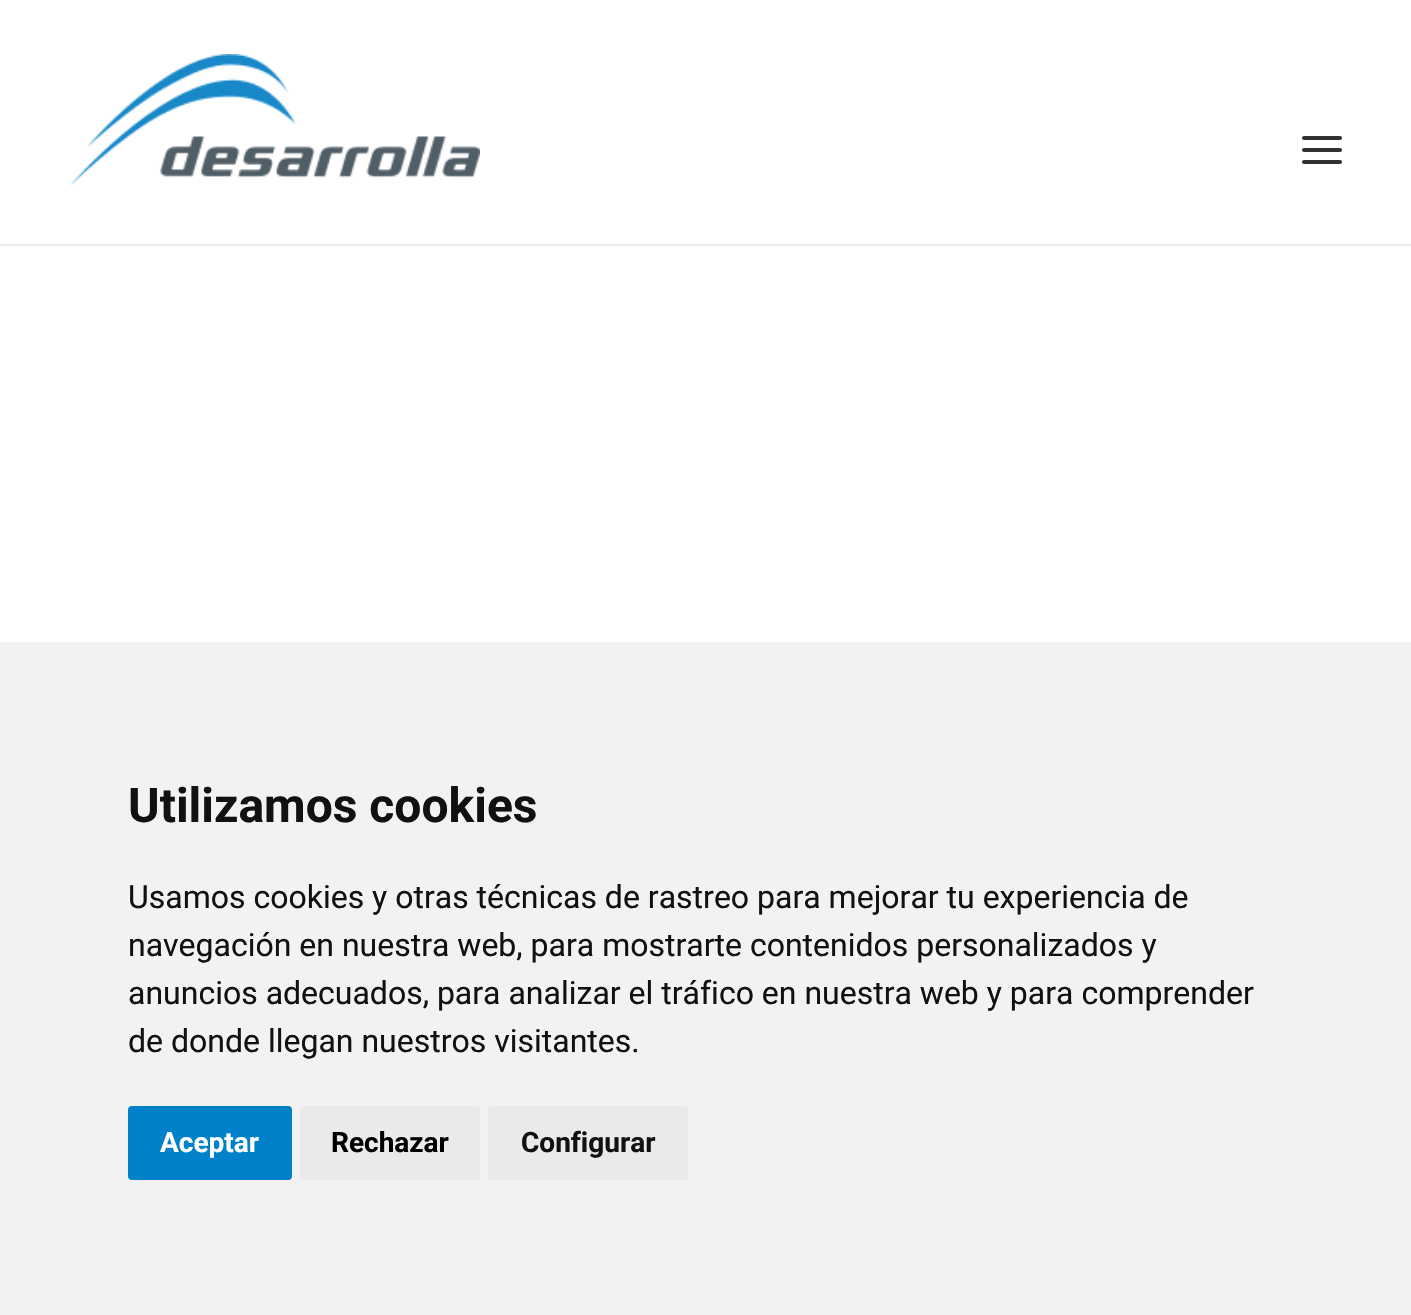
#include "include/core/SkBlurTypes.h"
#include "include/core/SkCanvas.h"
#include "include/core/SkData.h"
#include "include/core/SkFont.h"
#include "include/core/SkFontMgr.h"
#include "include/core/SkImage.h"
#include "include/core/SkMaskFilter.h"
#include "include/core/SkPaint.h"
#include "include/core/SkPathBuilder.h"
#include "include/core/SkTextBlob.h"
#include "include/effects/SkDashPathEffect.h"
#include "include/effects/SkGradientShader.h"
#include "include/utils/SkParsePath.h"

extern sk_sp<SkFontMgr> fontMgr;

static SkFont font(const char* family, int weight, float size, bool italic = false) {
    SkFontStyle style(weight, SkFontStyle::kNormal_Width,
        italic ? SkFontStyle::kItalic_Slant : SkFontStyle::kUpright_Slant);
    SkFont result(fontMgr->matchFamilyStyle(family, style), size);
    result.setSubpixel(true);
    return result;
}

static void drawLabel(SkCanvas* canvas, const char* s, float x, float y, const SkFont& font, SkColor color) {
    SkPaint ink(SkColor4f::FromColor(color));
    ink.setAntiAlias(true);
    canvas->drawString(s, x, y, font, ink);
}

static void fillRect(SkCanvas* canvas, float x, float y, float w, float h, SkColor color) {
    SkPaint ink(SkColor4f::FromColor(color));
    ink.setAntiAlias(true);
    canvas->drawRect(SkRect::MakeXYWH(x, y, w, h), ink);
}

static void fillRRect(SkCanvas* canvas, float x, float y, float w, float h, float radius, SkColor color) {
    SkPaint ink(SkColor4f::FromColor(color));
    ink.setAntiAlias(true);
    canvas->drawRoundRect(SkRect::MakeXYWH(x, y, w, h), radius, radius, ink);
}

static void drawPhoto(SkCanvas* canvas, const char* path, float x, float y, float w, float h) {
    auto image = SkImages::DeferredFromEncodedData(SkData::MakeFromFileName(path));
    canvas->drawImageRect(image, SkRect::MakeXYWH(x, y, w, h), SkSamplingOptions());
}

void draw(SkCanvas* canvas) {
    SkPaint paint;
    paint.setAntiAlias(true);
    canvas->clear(0xFFFFFFFF);
    fillRect(canvas, 0, 244, 1411, 2, 0xFFEAEAEA);
    drawPhoto(canvas, "assets/img1.png", 70, 54, 410, 132);
    fillRRect(canvas, 1302, 148, 40, 4, 2, 0xFF303133);
    fillRRect(canvas, 1302, 136, 40, 4, 2, 0xFF303133);
    fillRRect(canvas, 1302, 160, 40, 4, 2, 0xFF303133);
    fillRect(canvas, 0, 642, 1411, 673, 0xFFF2F2F2);
    SkFont font1 = font("Roboto", 700, 48);
    drawLabel(canvas, "Utilizamos cookies", 128, 822, font1, 0xFF111111);
    SkFont font2 = font("Roboto", 400, 32);
    drawLabel(canvas, "Usamos cookies y otras técnicas de rastreo para mejorar tu experiencia de", 128, 908, font2, 0xFF111111);
    drawLabel(canvas, "navegación en nuestra web, para mostrarte contenidos personalizados y", 128, 956, font2, 0xFF111111);
    drawLabel(canvas, "anuncios adecuados, para analizar el tráfico en nuestra web y para comprender", 128, 1004, font2, 0xFF111111);
    drawLabel(canvas, "de donde llegan nuestros visitantes.", 128, 1052, font2, 0xFF111111);
    fillRRect(canvas, 128, 1106, 164, 74, 4, 0xFF0081C9);
    SkFont font3 = font("Roboto", 700, 28);
    drawLabel(canvas, "Aceptar", 160, 1152, font3, 0xFFFFFFFF);
    fillRRect(canvas, 300, 1106, 180, 74, 4, 0xFFEAEAEA);
    drawLabel(canvas, "Rechazar", 331, 1152, font3, 0xFF000000);
    fillRRect(canvas, 488, 1106, 200, 74, 4, 0xFFEAEAEA);
    drawLabel(canvas, "Configurar", 521, 1152, font3, 0xFF111111);
}
